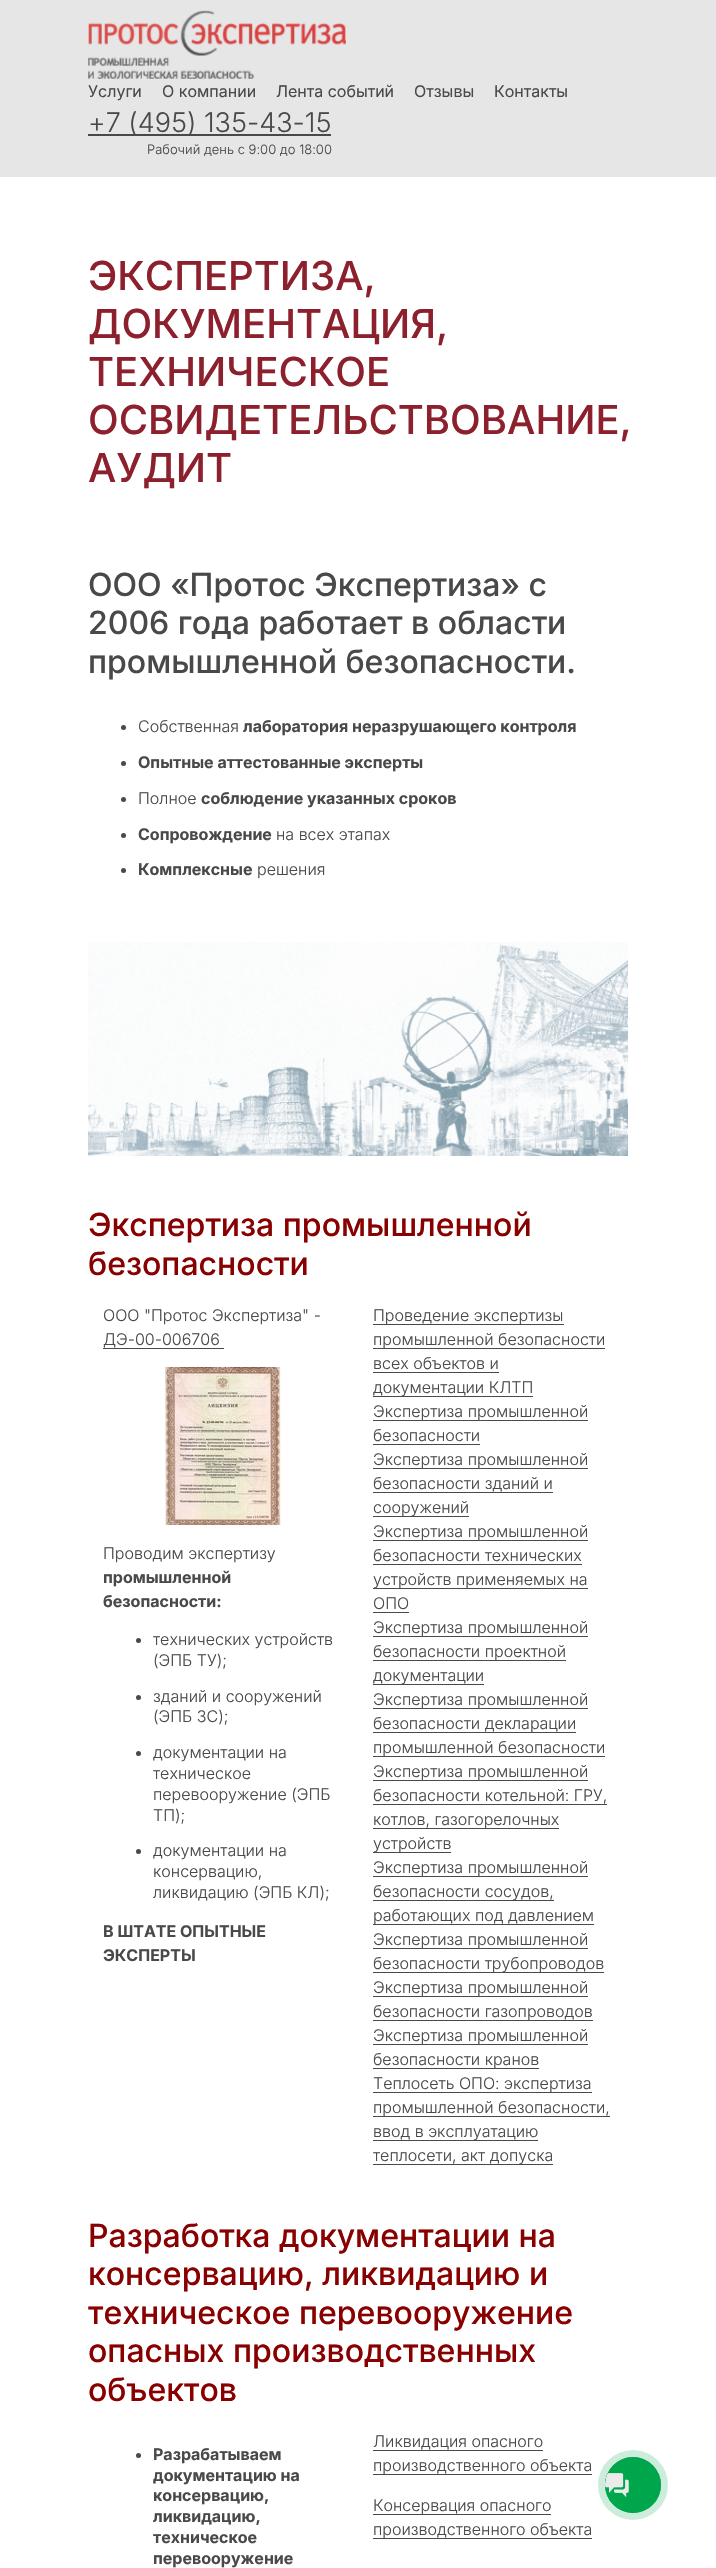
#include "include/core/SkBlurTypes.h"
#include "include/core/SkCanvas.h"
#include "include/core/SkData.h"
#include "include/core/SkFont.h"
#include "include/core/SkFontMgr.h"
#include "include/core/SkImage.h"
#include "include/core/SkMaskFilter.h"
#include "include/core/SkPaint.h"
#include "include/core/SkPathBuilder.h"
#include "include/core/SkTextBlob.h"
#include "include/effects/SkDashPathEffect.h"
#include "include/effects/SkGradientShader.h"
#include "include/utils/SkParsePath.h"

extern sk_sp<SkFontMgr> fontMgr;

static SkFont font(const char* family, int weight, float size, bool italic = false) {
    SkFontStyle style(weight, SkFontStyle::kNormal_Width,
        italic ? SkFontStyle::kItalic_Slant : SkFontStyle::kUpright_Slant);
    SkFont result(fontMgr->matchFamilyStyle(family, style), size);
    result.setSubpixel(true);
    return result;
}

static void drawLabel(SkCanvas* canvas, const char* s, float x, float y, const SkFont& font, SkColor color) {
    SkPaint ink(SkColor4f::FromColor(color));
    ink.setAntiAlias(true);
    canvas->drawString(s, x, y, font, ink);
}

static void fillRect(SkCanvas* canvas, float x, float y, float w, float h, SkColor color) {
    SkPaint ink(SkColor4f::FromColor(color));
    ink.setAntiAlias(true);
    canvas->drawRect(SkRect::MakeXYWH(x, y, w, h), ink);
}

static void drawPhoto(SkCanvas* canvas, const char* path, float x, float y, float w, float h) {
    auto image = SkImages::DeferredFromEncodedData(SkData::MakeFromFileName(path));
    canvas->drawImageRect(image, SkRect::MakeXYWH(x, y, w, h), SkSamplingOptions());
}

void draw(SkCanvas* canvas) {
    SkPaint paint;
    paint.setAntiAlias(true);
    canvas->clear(0xFFFFFFFF);
    fillRect(canvas, 0, 0, 716, 177, 0xFFE6E6E6);
    drawPhoto(canvas, "assets/img1.png", 88, 10, 258, 69);
    SkFont font1 = font("Inter", 400, 16);
    drawLabel(canvas, "Услуги", 88, 97, font1, 0xFF494949);
    drawLabel(canvas, "О компании", 162, 97, font1, 0xFF494949);
    drawLabel(canvas, "Лента событий", 276, 97, font1, 0xFF494949);
    drawLabel(canvas, "Отзывы", 414, 97, font1, 0xFF494949);
    drawLabel(canvas, "Контакты", 494, 97, font1, 0xFF494949);
    fillRect(canvas, 88, 134, 243, 2, 0xFF494949);
    SkFont font2 = font("Inter", 300, 27);
    drawLabel(canvas, "+7 (495) 135-43-15", 88, 132, font2, 0xFF494949);
    SkFont font3 = font("Inter", 300, 13);
    drawLabel(canvas, "Рабочий день с 9:00 до 18:00", 147, 154, font3, 0xFF494949);
    drawPhoto(canvas, "assets/img2.png", 88, 942, 540, 214);
    SkFont font4 = font("Inter", 500, 40);
    drawLabel(canvas, "ЭКСПЕРТИЗА,", 88, 290, font4, 0xFF8D202D);
    drawLabel(canvas, "ДОКУМЕНТАЦИЯ,", 88, 338, font4, 0xFF8D202D);
    drawLabel(canvas, "ТЕХНИЧЕСКОЕ", 88, 386, font4, 0xFF8D202D);
    drawLabel(canvas, "ОСВИДЕТЕЛЬСТВОВАНИЕ,", 88, 434, font4, 0xFF8D202D);
    drawLabel(canvas, "АУДИТ", 88, 482, font4, 0xFF8D202D);
    SkFont font5 = font("Inter", 500, 32);
    drawLabel(canvas, "ООО «Протос Экспертиза» с", 88, 596, font5, 0xFF494949);
    drawLabel(canvas, "2006 года работает в области", 88, 634, font5, 0xFF494949);
    drawLabel(canvas, "промышленной безопасности.", 88, 673, font5, 0xFF494949);
    paint.setColor(0xFF494949);
    canvas->drawCircle(123.5f, 727.5f, 2.5f, paint);
    SkFont font6 = font("Inter", 300, 16);
    drawLabel(canvas, "Собственная", 138, 732, font6, 0xFF494949);
    SkFont font7 = font("Inter", 700, 16);
    drawLabel(canvas, "лаборатория неразрушающего контроля", 243, 732, font7, 0xFF494949);
    canvas->drawCircle(123.5f, 763.5f, 2.5f, paint);
    drawLabel(canvas, "Опытные аттестованные эксперты", 138, 768, font7, 0xFF494949);
    canvas->drawCircle(123.5f, 799.5f, 2.5f, paint);
    drawLabel(canvas, "Полное", 138, 804, font6, 0xFF494949);
    drawLabel(canvas, "соблюдение указанных сроков", 201, 804, font7, 0xFF494949);
    canvas->drawCircle(123.5f, 835.5f, 2.5f, paint);
    drawLabel(canvas, "Сопровождение", 138, 840, font7, 0xFF494949);
    drawLabel(canvas, "на всех этапах", 276, 840, font6, 0xFF494949);
    canvas->drawCircle(123.5f, 870.5f, 2.5f, paint);
    drawLabel(canvas, "Комплексные", 138, 875, font7, 0xFF494949);
    drawLabel(canvas, "решения", 257, 875, font6, 0xFF494949);
    drawLabel(canvas, "Экспертиза промышленной", 88, 1236, font5, 0xFF880000);
    drawLabel(canvas, "безопасности", 88, 1275, font5, 0xFF880000);
    drawLabel(canvas, "ООО \"Протос Экспертиза\" -", 103, 1321, font6, 0xFF494949);
    drawLabel(canvas, "ДЭ-00-006706", 103, 1345, font6, 0xFF494949);
    fillRect(canvas, 103, 1348, 121, 1, 0xFF494949);
    drawPhoto(canvas, "assets/img3.png", 165, 1367, 116, 158);
    drawLabel(canvas, "Проводим экспертизу", 103, 1559, font6, 0xFF494949);
    drawLabel(canvas, "промышленной", 103, 1583, font7, 0xFF494949);
    drawLabel(canvas, "безопасности:", 103, 1607, font7, 0xFF494949);
    canvas->drawCircle(138.5f, 1640.5f, 2.5f, paint);
    drawLabel(canvas, "технических устройств", 153, 1645, font6, 0xFF494949);
    drawLabel(canvas, "(ЭПБ ТУ);", 153, 1666, font6, 0xFF494949);
    canvas->drawCircle(138.5f, 1697.5f, 2.5f, paint);
    drawLabel(canvas, "зданий и сооружений", 153, 1702, font6, 0xFF494949);
    drawLabel(canvas, "(ЭПБ ЗС);", 153, 1722, font6, 0xFF494949);
    canvas->drawCircle(138.5f, 1753.5f, 2.5f, paint);
    drawLabel(canvas, "документации на", 153, 1758, font6, 0xFF494949);
    drawLabel(canvas, "техническое", 153, 1779, font6, 0xFF494949);
    drawLabel(canvas, "перевооружение (ЭПБ", 153, 1800, font6, 0xFF494949);
    drawLabel(canvas, "ТП);", 153, 1821, font6, 0xFF494949);
    canvas->drawCircle(138.5f, 1851.5f, 2.5f, paint);
    drawLabel(canvas, "документации на", 153, 1856, font6, 0xFF494949);
    drawLabel(canvas, "консервацию,", 153, 1877, font6, 0xFF494949);
    drawLabel(canvas, "ликвидацию (ЭПБ КЛ);", 153, 1898, font6, 0xFF494949);
    drawLabel(canvas, "В ШТАТЕ ОПЫТНЫЕ", 103, 1937, font7, 0xFF494949);
    drawLabel(canvas, "ЭКСПЕРТЫ", 103, 1961, font7, 0xFF494949);
    fillRect(canvas, 373, 1324, 191, 1, 0xFF494949);
    drawLabel(canvas, "Проведение экспертизы", 373, 1321, font6, 0xFF494949);
    fillRect(canvas, 373, 1348, 232, 1, 0xFF494949);
    drawLabel(canvas, "промышленной безопасности", 373, 1345, font6, 0xFF494949);
    drawLabel(canvas, "всех объектов и", 373, 1369, font6, 0xFF494949);
    fillRect(canvas, 373, 1372, 126, 1, 0xFF494949);
    fillRect(canvas, 373, 1396, 160, 1, 0xFF494949);
    drawLabel(canvas, "документации КЛТП", 373, 1393, font6, 0xFF494949);
    fillRect(canvas, 373, 1420, 215, 1, 0xFF494949);
    drawLabel(canvas, "Экспертиза промышленной", 373, 1417, font6, 0xFF494949);
    drawLabel(canvas, "безопасности", 373, 1441, font6, 0xFF494949);
    fillRect(canvas, 373, 1444, 107, 1, 0xFF494949);
    fillRect(canvas, 373, 1468, 215, 1, 0xFF494949);
    drawLabel(canvas, "Экспертиза промышленной", 373, 1465, font6, 0xFF494949);
    drawLabel(canvas, "безопасности зданий и", 373, 1489, font6, 0xFF494949);
    fillRect(canvas, 373, 1492, 180, 1, 0xFF494949);
    fillRect(canvas, 373, 1516, 96, 1, 0xFF494949);
    drawLabel(canvas, "сооружений", 373, 1513, font6, 0xFF494949);
    fillRect(canvas, 373, 1540, 215, 1, 0xFF494949);
    drawLabel(canvas, "Экспертиза промышленной", 373, 1537, font6, 0xFF494949);
    drawLabel(canvas, "безопасности технических", 373, 1561, font6, 0xFF494949);
    fillRect(canvas, 373, 1564, 209, 1, 0xFF494949);
    fillRect(canvas, 373, 1588, 215, 1, 0xFF494949);
    drawLabel(canvas, "устройств применяемых на", 373, 1585, font6, 0xFF494949);
    drawLabel(canvas, "ОПО", 373, 1609, font6, 0xFF494949);
    fillRect(canvas, 373, 1612, 36, 1, 0xFF494949);
    fillRect(canvas, 373, 1636, 215, 1, 0xFF494949);
    drawLabel(canvas, "Экспертиза промышленной", 373, 1633, font6, 0xFF494949);
    fillRect(canvas, 373, 1660, 193, 1, 0xFF494949);
    drawLabel(canvas, "безопасности проектной", 373, 1657, font6, 0xFF494949);
    fillRect(canvas, 373, 1684, 111, 1, 0xFF494949);
    drawLabel(canvas, "документации", 373, 1681, font6, 0xFF494949);
    fillRect(canvas, 373, 1708, 215, 1, 0xFF494949);
    drawLabel(canvas, "Экспертиза промышленной", 373, 1705, font6, 0xFF494949);
    fillRect(canvas, 373, 1732, 203, 1, 0xFF494949);
    drawLabel(canvas, "безопасности декларации", 373, 1729, font6, 0xFF494949);
    fillRect(canvas, 373, 1756, 232, 1, 0xFF494949);
    drawLabel(canvas, "промышленной безопасности", 373, 1753, font6, 0xFF494949);
    fillRect(canvas, 373, 1780, 215, 1, 0xFF494949);
    drawLabel(canvas, "Экспертиза промышленной", 373, 1777, font6, 0xFF494949);
    drawLabel(canvas, "безопасности котельной: ГРУ,", 373, 1801, font6, 0xFF494949);
    fillRect(canvas, 373, 1804, 234, 1, 0xFF494949);
    fillRect(canvas, 373, 1828, 186, 1, 0xFF494949);
    drawLabel(canvas, "котлов, газогорелочных", 373, 1825, font6, 0xFF494949);
    fillRect(canvas, 373, 1852, 78, 1, 0xFF494949);
    drawLabel(canvas, "устройств", 373, 1849, font6, 0xFF494949);
    fillRect(canvas, 373, 1876, 215, 1, 0xFF494949);
    drawLabel(canvas, "Экспертиза промышленной", 373, 1873, font6, 0xFF494949);
    fillRect(canvas, 373, 1900, 181, 1, 0xFF494949);
    drawLabel(canvas, "безопасности сосудов,", 373, 1897, font6, 0xFF494949);
    fillRect(canvas, 373, 1924, 221, 1, 0xFF494949);
    drawLabel(canvas, "работающих под давлением", 373, 1921, font6, 0xFF494949);
    fillRect(canvas, 373, 1948, 215, 1, 0xFF494949);
    drawLabel(canvas, "Экспертиза промышленной", 373, 1945, font6, 0xFF494949);
    fillRect(canvas, 373, 1972, 231, 1, 0xFF494949);
    drawLabel(canvas, "безопасности трубопроводов", 373, 1969, font6, 0xFF494949);
    fillRect(canvas, 373, 1996, 215, 1, 0xFF494949);
    drawLabel(canvas, "Экспертиза промышленной", 373, 1993, font6, 0xFF494949);
    fillRect(canvas, 373, 2020, 220, 1, 0xFF494949);
    drawLabel(canvas, "безопасности газопроводов", 373, 2017, font6, 0xFF494949);
    fillRect(canvas, 373, 2044, 215, 1, 0xFF494949);
    drawLabel(canvas, "Экспертиза промышленной", 373, 2041, font6, 0xFF494949);
    fillRect(canvas, 373, 2068, 166, 1, 0xFF494949);
    drawLabel(canvas, "безопасности кранов", 373, 2065, font6, 0xFF494949);
    fillRect(canvas, 373, 2092, 219, 1, 0xFF494949);
    drawLabel(canvas, "Теплосеть ОПО: экспертиза", 373, 2089, font6, 0xFF494949);
    fillRect(canvas, 373, 2116, 237, 1, 0xFF494949);
    drawLabel(canvas, "промышленной безопасности,", 373, 2113, font6, 0xFF494949);
    fillRect(canvas, 373, 2140, 165, 1, 0xFF494949);
    drawLabel(canvas, "ввод в эксплуатацию", 373, 2137, font6, 0xFF494949);
    fillRect(canvas, 373, 2164, 180, 1, 0xFF494949);
    drawLabel(canvas, "теплосети, акт допуска", 373, 2161, font6, 0xFF494949);
    drawLabel(canvas, "Разработка документации на", 88, 2247, font5, 0xFF880000);
    drawLabel(canvas, "консервацию, ликвидацию и", 88, 2285, font5, 0xFF880000);
    drawLabel(canvas, "техническое перевооружение", 88, 2324, font5, 0xFF880000);
    drawLabel(canvas, "опасных производственных", 88, 2362, font5, 0xFF880000);
    drawLabel(canvas, "объектов", 88, 2401, font5, 0xFF880000);
    canvas->drawCircle(138.5f, 2455.5f, 2.5f, paint);
    drawLabel(canvas, "Разрабатываем", 153, 2460, font7, 0xFF494949);
    drawLabel(canvas, "документацию на", 153, 2481, font7, 0xFF494949);
    drawLabel(canvas, "консервацию,", 153, 2501, font7, 0xFF494949);
    drawLabel(canvas, "ликвидацию,", 153, 2522, font7, 0xFF494949);
    drawLabel(canvas, "техническое", 153, 2543, font7, 0xFF494949);
    drawLabel(canvas, "перевооружение", 153, 2564, font7, 0xFF494949);
    drawLabel(canvas, "Ликвидация опасного", 373, 2447, font6, 0xFF494949);
    fillRect(canvas, 373, 2450, 170, 1, 0xFF494949);
    fillRect(canvas, 373, 2474, 219, 1, 0xFF494949);
    drawLabel(canvas, "производственного объекта", 373, 2471, font6, 0xFF494949);
    fillRect(canvas, 373, 2514, 178, 1, 0xFF494949);
    drawLabel(canvas, "Консервация опасного", 373, 2511, font6, 0xFF494949);
    fillRect(canvas, 373, 2538, 219, 1, 0xFF494949);
    drawLabel(canvas, "производственного объекта", 373, 2535, font6, 0xFF494949);
    paint.setColor(0xFFCCEDDB);
    canvas->drawCircle(633, 2485, 35, paint);
    paint.setStroke(true);
    paint.setStrokeWidth(0.8f);
    paint.setColor(0xFF00A64C);
    canvas->drawCircle(633, 2485, 27.6f, paint);
    paint.setStroke(false);
    canvas->drawCircle(633, 2485, 28, paint);
    drawPhoto(canvas, "assets/img4.png", 605, 2473, 24, 24);
}
